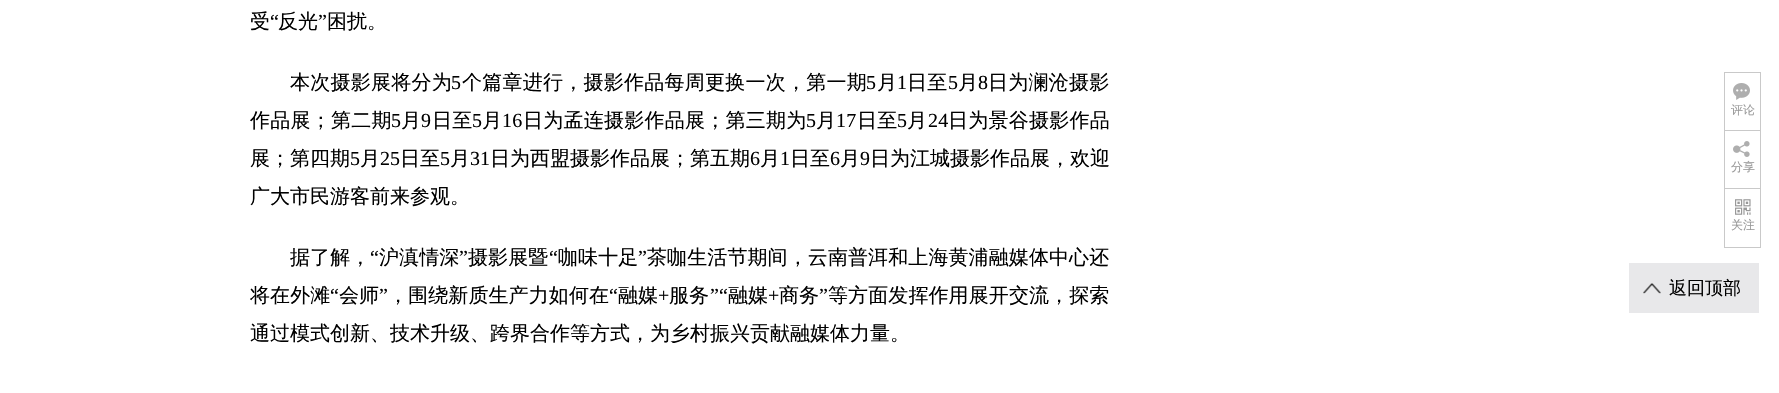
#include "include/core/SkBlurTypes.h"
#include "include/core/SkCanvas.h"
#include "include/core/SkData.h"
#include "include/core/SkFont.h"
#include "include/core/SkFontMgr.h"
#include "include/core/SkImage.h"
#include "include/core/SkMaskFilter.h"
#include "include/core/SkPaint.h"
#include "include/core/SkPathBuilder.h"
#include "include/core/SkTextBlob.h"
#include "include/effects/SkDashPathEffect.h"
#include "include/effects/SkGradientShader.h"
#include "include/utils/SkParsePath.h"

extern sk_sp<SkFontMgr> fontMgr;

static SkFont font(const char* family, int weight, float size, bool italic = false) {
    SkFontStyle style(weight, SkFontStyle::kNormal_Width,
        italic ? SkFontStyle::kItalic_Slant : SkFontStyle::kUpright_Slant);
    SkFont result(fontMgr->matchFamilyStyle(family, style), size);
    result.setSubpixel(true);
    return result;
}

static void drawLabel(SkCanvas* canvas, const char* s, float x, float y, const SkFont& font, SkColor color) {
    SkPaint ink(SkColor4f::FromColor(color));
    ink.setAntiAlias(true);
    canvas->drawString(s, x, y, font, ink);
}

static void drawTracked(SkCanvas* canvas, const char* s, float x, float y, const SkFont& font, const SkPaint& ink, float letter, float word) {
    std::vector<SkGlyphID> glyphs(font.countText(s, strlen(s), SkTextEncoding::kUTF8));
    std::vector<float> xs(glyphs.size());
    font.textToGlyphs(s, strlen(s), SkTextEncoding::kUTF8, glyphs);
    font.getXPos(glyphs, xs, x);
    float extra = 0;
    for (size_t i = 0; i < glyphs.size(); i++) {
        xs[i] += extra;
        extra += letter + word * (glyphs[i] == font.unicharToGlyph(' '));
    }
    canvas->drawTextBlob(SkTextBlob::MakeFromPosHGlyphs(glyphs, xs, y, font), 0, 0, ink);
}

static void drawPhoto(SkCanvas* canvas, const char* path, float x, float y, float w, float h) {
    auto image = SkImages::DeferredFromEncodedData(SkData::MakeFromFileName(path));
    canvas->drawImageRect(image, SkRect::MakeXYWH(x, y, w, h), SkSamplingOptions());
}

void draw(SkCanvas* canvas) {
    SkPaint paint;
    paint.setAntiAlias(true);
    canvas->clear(0xFFFFFFFF);
    SkFont font1 = font("WenQuanYi Zen Hei", 500, 20);
    drawLabel(canvas, "受", 250, 28, font1, 0xFF000000);
    SkFont font2 = font("Liberation Serif", 400, 20);
    drawLabel(canvas, "“", 270, 28, font2, 0xFF000000);
    drawLabel(canvas, "反光", 278, 28, font1, 0xFF000000);
    drawLabel(canvas, "”", 318, 28, font2, 0xFF000000);
    drawLabel(canvas, "困扰。", 327, 28, font1, 0xFF000000);
    paint.setColor(0xFF000000);
    drawTracked(canvas, "本次摄影展将分为", 290, 89, font1, paint, 0.25f, 0);
    drawTracked(canvas, "5", 451, 89, font2, paint, 0.25f, 0);
    drawTracked(canvas, "个篇章进行，摄影作品每周更换一次，第一期", 462, 89, font1, paint, 0.25f, 0);
    drawTracked(canvas, "5", 866, 89, font2, paint, 0.25f, 0);
    drawTracked(canvas, "月", 877, 89, font1, paint, 0.25f, 0);
    drawTracked(canvas, "1", 897, 89, font2, paint, 0.25f, 0);
    drawTracked(canvas, "日至", 907, 89, font1, paint, 0.25f, 0);
    drawTracked(canvas, "5", 948, 89, font2, paint, 0.25f, 0);
    drawTracked(canvas, "月", 958, 89, font1, paint, 0.25f, 0);
    drawTracked(canvas, "8", 978, 89, font2, paint, 0.25f, 0);
    drawTracked(canvas, "日为澜沧摄影", 988, 89, font1, paint, 0.25f, 0);
    drawTracked(canvas, "作品展；第二期", 250, 127, font1, paint, 0.25f, 0);
    drawTracked(canvas, "5", 391, 127, font2, paint, 0.25f, 0);
    drawTracked(canvas, "月", 401, 127, font1, paint, 0.25f, 0);
    drawTracked(canvas, "9", 421, 127, font2, paint, 0.25f, 0);
    drawTracked(canvas, "日至", 432, 127, font1, paint, 0.25f, 0);
    drawTracked(canvas, "5", 472, 127, font2, paint, 0.25f, 0);
    drawTracked(canvas, "月", 482, 127, font1, paint, 0.25f, 0);
    drawTracked(canvas, "16", 502, 127, font2, paint, 0.25f, 0);
    drawTracked(canvas, "日为孟连摄影作品展；第三期为", 523, 127, font1, paint, 0.25f, 0);
    drawTracked(canvas, "5", 806, 127, font2, paint, 0.25f, 0);
    drawTracked(canvas, "月", 816, 127, font1, paint, 0.25f, 0);
    drawTracked(canvas, "17", 836, 127, font2, paint, 0.25f, 0);
    drawTracked(canvas, "日至", 857, 127, font1, paint, 0.25f, 0);
    drawTracked(canvas, "5", 897, 127, font2, paint, 0.25f, 0);
    drawTracked(canvas, "月", 907, 127, font1, paint, 0.25f, 0);
    drawTracked(canvas, "24", 928, 127, font2, paint, 0.25f, 0);
    drawTracked(canvas, "日为景谷摄影作品", 948, 127, font1, paint, 0.25f, 0);
    drawLabel(canvas, "展；第四期", 250, 165, font1, 0xFF000000);
    drawLabel(canvas, "5", 350, 165, font2, 0xFF000000);
    drawLabel(canvas, "月", 360, 165, font1, 0xFF000000);
    drawLabel(canvas, "25", 380, 165, font2, 0xFF000000);
    drawLabel(canvas, "日至", 400, 165, font1, 0xFF000000);
    drawLabel(canvas, "5", 440, 165, font2, 0xFF000000);
    drawLabel(canvas, "月", 450, 165, font1, 0xFF000000);
    drawLabel(canvas, "31", 470, 165, font2, 0xFF000000);
    drawLabel(canvas, "日为西盟摄影作品展；第五期", 490, 165, font1, 0xFF000000);
    drawLabel(canvas, "6", 750, 165, font2, 0xFF000000);
    drawLabel(canvas, "月", 760, 165, font1, 0xFF000000);
    drawLabel(canvas, "1", 780, 165, font2, 0xFF000000);
    drawLabel(canvas, "日至", 790, 165, font1, 0xFF000000);
    drawLabel(canvas, "6", 830, 165, font2, 0xFF000000);
    drawLabel(canvas, "月", 840, 165, font1, 0xFF000000);
    drawLabel(canvas, "9", 860, 165, font2, 0xFF000000);
    drawLabel(canvas, "日为江城摄影作品展，欢迎", 870, 165, font1, 0xFF000000);
    drawLabel(canvas, "广大市民游客前来参观。", 250, 203, font1, 0xFF000000);
    drawTracked(canvas, "据了解，", 290, 264, font1, paint, 0.1f, 0);
    drawTracked(canvas, "“", 370, 264, font2, paint, 0.1f, 0);
    drawTracked(canvas, "沪滇情深", 379, 264, font1, paint, 0.1f, 0);
    drawTracked(canvas, "”", 459, 264, font2, paint, 0.1f, 0);
    drawTracked(canvas, "摄影展暨", 468, 264, font1, paint, 0.1f, 0);
    drawTracked(canvas, "“", 549, 264, font2, paint, 0.1f, 0);
    drawTracked(canvas, "咖味十足", 558, 264, font1, paint, 0.1f, 0);
    drawTracked(canvas, "”", 638, 264, font2, paint, 0.1f, 0);
    drawTracked(canvas, "茶咖生活节期间，云南普洱和上海黄浦融媒体中心还", 647, 264, font1, paint, 0.1f, 0);
    drawTracked(canvas, "将在外滩", 250, 302, font1, paint, 0.1f, 0);
    drawTracked(canvas, "“", 330, 302, font2, paint, 0.1f, 0);
    drawTracked(canvas, "会师", 339, 302, font1, paint, 0.1f, 0);
    drawTracked(canvas, "”", 379, 302, font2, paint, 0.1f, 0);
    drawTracked(canvas, "，围绕新质生产力如何在", 388, 302, font1, paint, 0.1f, 0);
    drawTracked(canvas, "“", 609, 302, font2, paint, 0.1f, 0);
    drawTracked(canvas, "融媒", 618, 302, font1, paint, 0.1f, 0);
    drawTracked(canvas, "+", 658, 302, font2, paint, 0.1f, 0);
    drawTracked(canvas, "服务", 669, 302, font1, paint, 0.1f, 0);
    drawTracked(canvas, "”“", 710, 302, font2, paint, 0.1f, 0);
    drawTracked(canvas, "融媒", 728, 302, font1, paint, 0.1f, 0);
    drawTracked(canvas, "+", 768, 302, font2, paint, 0.1f, 0);
    drawTracked(canvas, "商务", 779, 302, font1, paint, 0.1f, 0);
    drawTracked(canvas, "”", 819, 302, font2, paint, 0.1f, 0);
    drawTracked(canvas, "等方面发挥作用展开交流，探索", 828, 302, font1, paint, 0.1f, 0);
    drawLabel(canvas, "通过模式创新、技术升级、跨界合作等方式，为乡村振兴贡献融媒体力量。", 250, 340, font1, 0xFF000000);
    canvas->save();
    canvas->clipRect(SkRect::MakeXYWH(1724, 72, 37, 58));
    paint.setStroke(true);
    paint.setStrokeWidth(1);
    paint.setColor(0xFFC9C9C9);
    canvas->drawRect(SkRect::MakeXYWH(1724.5f, 72.5f, 36, 60), paint);
    canvas->restore();
    drawPhoto(canvas, "assets/img1.png", 1733, 83, 17, 17);
    SkFont font3 = font("WenQuanYi Zen Hei", 500, 12);
    drawLabel(canvas, "评论", 1731, 114, font3, 0xFF999999);
    canvas->save();
    canvas->clipRect(SkRect::MakeXYWH(1724, 130, 37, 58));
    canvas->drawRect(SkRect::MakeXYWH(1724.5f, 130.5f, 36, 59), paint);
    canvas->restore();
    drawPhoto(canvas, "assets/img2.png", 1733, 141, 17, 16);
    drawLabel(canvas, "分享", 1731, 171, font3, 0xFF999999);
    canvas->drawRect(SkRect::MakeXYWH(1724.5f, 188.5f, 36, 59), paint);
    drawPhoto(canvas, "assets/img3.png", 1735, 199, 16, 16);
    drawLabel(canvas, "关注", 1731, 229, font3, 0xFF999999);
    drawPhoto(canvas, "assets/img4.png", 1629, 263, 130, 50);
    SkFont font4 = font("WenQuanYi Zen Hei", 500, 18);
    drawLabel(canvas, "返回顶部", 1669, 294, font4, 0xFF000000);
}
